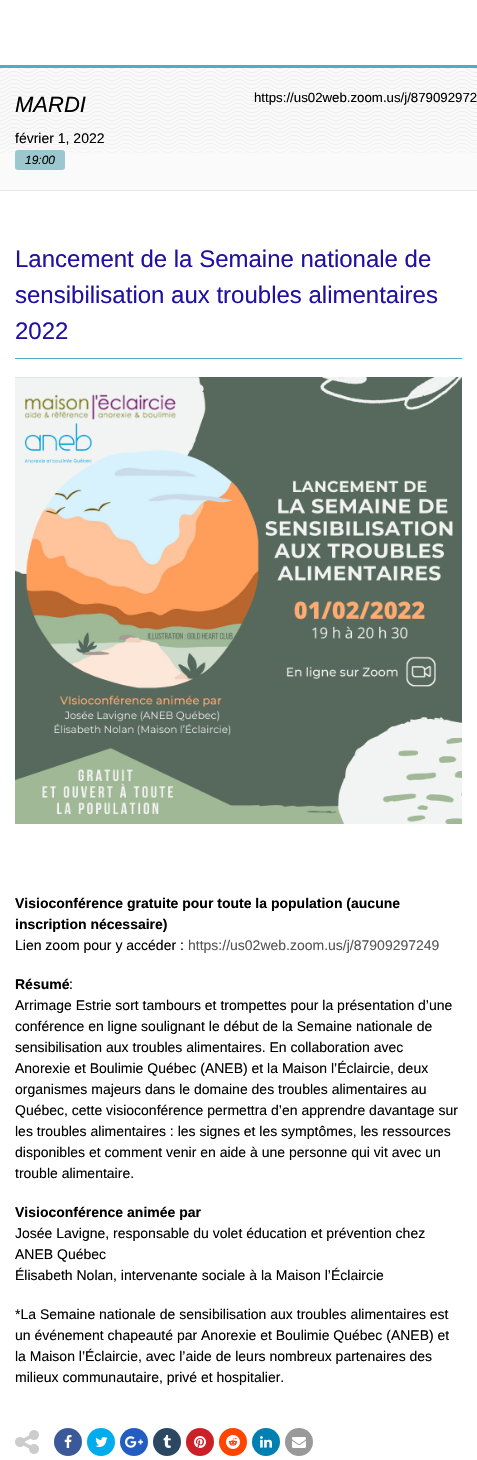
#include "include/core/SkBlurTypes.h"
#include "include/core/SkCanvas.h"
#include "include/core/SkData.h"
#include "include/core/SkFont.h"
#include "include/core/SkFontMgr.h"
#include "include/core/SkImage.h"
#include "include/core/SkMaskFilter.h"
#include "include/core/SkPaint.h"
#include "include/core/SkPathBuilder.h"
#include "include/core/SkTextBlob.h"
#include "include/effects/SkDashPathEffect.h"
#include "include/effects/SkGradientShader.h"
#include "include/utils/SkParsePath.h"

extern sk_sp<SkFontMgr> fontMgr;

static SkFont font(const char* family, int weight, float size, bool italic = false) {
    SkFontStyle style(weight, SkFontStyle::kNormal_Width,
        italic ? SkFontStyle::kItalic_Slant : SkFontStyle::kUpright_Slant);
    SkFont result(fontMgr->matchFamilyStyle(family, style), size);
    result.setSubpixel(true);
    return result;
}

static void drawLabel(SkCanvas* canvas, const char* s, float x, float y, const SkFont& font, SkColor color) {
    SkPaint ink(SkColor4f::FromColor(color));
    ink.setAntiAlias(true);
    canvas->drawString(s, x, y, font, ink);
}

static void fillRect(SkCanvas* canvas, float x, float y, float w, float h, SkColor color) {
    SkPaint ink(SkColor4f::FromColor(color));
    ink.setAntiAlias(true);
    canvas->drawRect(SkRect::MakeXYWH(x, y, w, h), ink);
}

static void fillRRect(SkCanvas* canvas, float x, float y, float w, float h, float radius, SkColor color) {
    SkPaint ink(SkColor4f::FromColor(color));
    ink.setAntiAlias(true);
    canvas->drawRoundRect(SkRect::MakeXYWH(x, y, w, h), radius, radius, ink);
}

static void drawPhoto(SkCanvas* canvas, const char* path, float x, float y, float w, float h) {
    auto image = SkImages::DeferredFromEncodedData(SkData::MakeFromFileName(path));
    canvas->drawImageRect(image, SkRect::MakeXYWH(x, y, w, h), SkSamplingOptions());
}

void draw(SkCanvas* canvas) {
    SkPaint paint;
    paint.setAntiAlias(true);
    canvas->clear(0xFFFFFFFF);
    fillRect(canvas, 0, 65, 477, 3, 0xFF4CADC5);
    fillRect(canvas, 0, 68, 477, 122, 0xFFFAFAFA);
    drawPhoto(canvas, "assets/img1.png", 0, 68, 477, 85);
    fillRect(canvas, 0, 190, 477, 1, 0xFFE8E8E8);
    SkFont font1 = font("Liberation Sans", 400, 22, true);
    drawLabel(canvas, "MARDI", 15, 112, font1, 0xFF000000);
    SkFont font2 = font("Liberation Sans", 400, 14);
    drawLabel(canvas, "février 1, 2022", 15, 143, font2, 0xFF000000);
    fillRRect(canvas, 15, 150, 50, 20, 3, 0xFF9BC8CE);
    SkFont font3 = font("Liberation Sans", 400, 12, true);
    drawLabel(canvas, "19:00", 25, 164, font3, 0xFF000000);
    SkFont font4 = font("Liberation Sans", 400, 13.25f);
    drawLabel(canvas, "https://us02web.zoom.us/j/879092972", 254, 102, font4, 0xFF000000);
    fillRect(canvas, 15, 358, 447, 1, 0xFF4CADC5);
    SkFont font5 = font("Liberation Sans", 400, 24);
    drawLabel(canvas, "Lancement de la Semaine nationale de", 15, 267, font5, 0xFF2011A2);
    drawLabel(canvas, "sensibilisation aux troubles alimentaires", 15, 303, font5, 0xFF2011A2);
    drawLabel(canvas, "2022", 15, 339, font5, 0xFF2011A2);
    drawPhoto(canvas, "assets/img2.png", 15, 377, 447, 447);
    SkFont font6 = font("Liberation Sans", 700, 14);
    drawLabel(canvas, "Visioconférence gratuite pour toute la population (aucune", 15, 908, font6, 0xFF000000);
    drawLabel(canvas, "inscription nécessaire)", 15, 929, font6, 0xFF000000);
    drawLabel(canvas, "Lien zoom pour y accéder :", 15, 950, font2, 0xFF000000);
    drawLabel(canvas, "https://us02web.zoom.us/j/87909297249", 188, 950, font2, 0xFF555555);
    drawLabel(canvas, "Résumé", 15, 989, font6, 0xFF000000);
    drawLabel(canvas, ":", 69, 989, font2, 0xFF000000);
    drawLabel(canvas, "Arrimage Estrie sort tambours et trompettes pour la présentation d’une", 15, 1010, font2, 0xFF000000);
    drawLabel(canvas, "conférence en ligne soulignant le début de la Semaine nationale de", 15, 1031, font2, 0xFF000000);
    drawLabel(canvas, "sensibilisation aux troubles alimentaires. En collaboration avec", 15, 1052, font2, 0xFF000000);
    drawLabel(canvas, "Anorexie et Boulimie Québec (ANEB) et la Maison l’Éclaircie, deux", 15, 1073, font2, 0xFF000000);
    drawLabel(canvas, "organismes majeurs dans le domaine des troubles alimentaires au", 15, 1094, font2, 0xFF000000);
    drawLabel(canvas, "Québec, cette visioconférence permettra d’en apprendre davantage sur", 15, 1115, font2, 0xFF000000);
    drawLabel(canvas, "les troubles alimentaires : les signes et les symptômes, les ressources", 15, 1136, font2, 0xFF000000);
    drawLabel(canvas, "disponibles et comment venir en aide à une personne qui vit avec un", 15, 1157, font2, 0xFF000000);
    drawLabel(canvas, "trouble alimentaire.", 15, 1178, font2, 0xFF000000);
    drawLabel(canvas, "Visioconférence animée par", 15, 1217, font6, 0xFF000000);
    drawLabel(canvas, "Josée Lavigne, responsable du volet éducation et prévention chez", 15, 1238, font2, 0xFF000000);
    drawLabel(canvas, "ANEB Québec", 15, 1259, font2, 0xFF000000);
    drawLabel(canvas, "Élisabeth Nolan, intervenante sociale à la Maison l’Éclaircie", 15, 1280, font2, 0xFF000000);
    drawLabel(canvas, "*La Semaine nationale de sensibilisation aux troubles alimentaires est", 15, 1319, font2, 0xFF000000);
    drawLabel(canvas, "un événement chapeauté par Anorexie et Boulimie Québec (ANEB) et", 15, 1340, font2, 0xFF000000);
    drawLabel(canvas, "la Maison l’Éclaircie, avec l’aide de leurs nombreux partenaires des", 15, 1361, font2, 0xFF000000);
    drawLabel(canvas, "milieux communautaire, privé et hospitalier.", 15, 1382, font2, 0xFF000000);
    drawPhoto(canvas, "assets/img3.png", 15, 1430, 24, 24);
    paint.setColor(0xFF3B5998);
    canvas->drawCircle(68, 1442, 14, paint);
    drawPhoto(canvas, "assets/img4.png", 64, 1435, 8, 13);
    paint.setColor(0xFF00ACED);
    canvas->drawCircle(101, 1442, 14, paint);
    drawPhoto(canvas, "assets/img5.png", 95, 1437, 13, 10);
    paint.setColor(0xFF245DC1);
    canvas->drawCircle(134, 1442, 14, paint);
    drawPhoto(canvas, "assets/img6.png", 125, 1436, 18, 12);
    paint.setColor(0xFF2C4762);
    canvas->drawCircle(167, 1442, 14, paint);
    drawPhoto(canvas, "assets/img7.png", 163, 1435, 8, 13);
    paint.setColor(0xFFCB2027);
    canvas->drawCircle(200, 1442, 14, paint);
    drawPhoto(canvas, "assets/img8.png", 194, 1436, 12, 12);
    paint.setColor(0xFFFF4500);
    canvas->drawCircle(233, 1442, 14, paint);
    drawPhoto(canvas, "assets/img9.png", 226, 1435, 14, 14);
    paint.setColor(0xFF007FB1);
    canvas->drawCircle(266, 1442, 14, paint);
    drawPhoto(canvas, "assets/img10.png", 260, 1436, 12, 12);
    paint.setColor(0xFF999999);
    canvas->drawCircle(299, 1442, 14, paint);
    drawPhoto(canvas, "assets/img11.png", 292, 1437, 14, 11);
}
